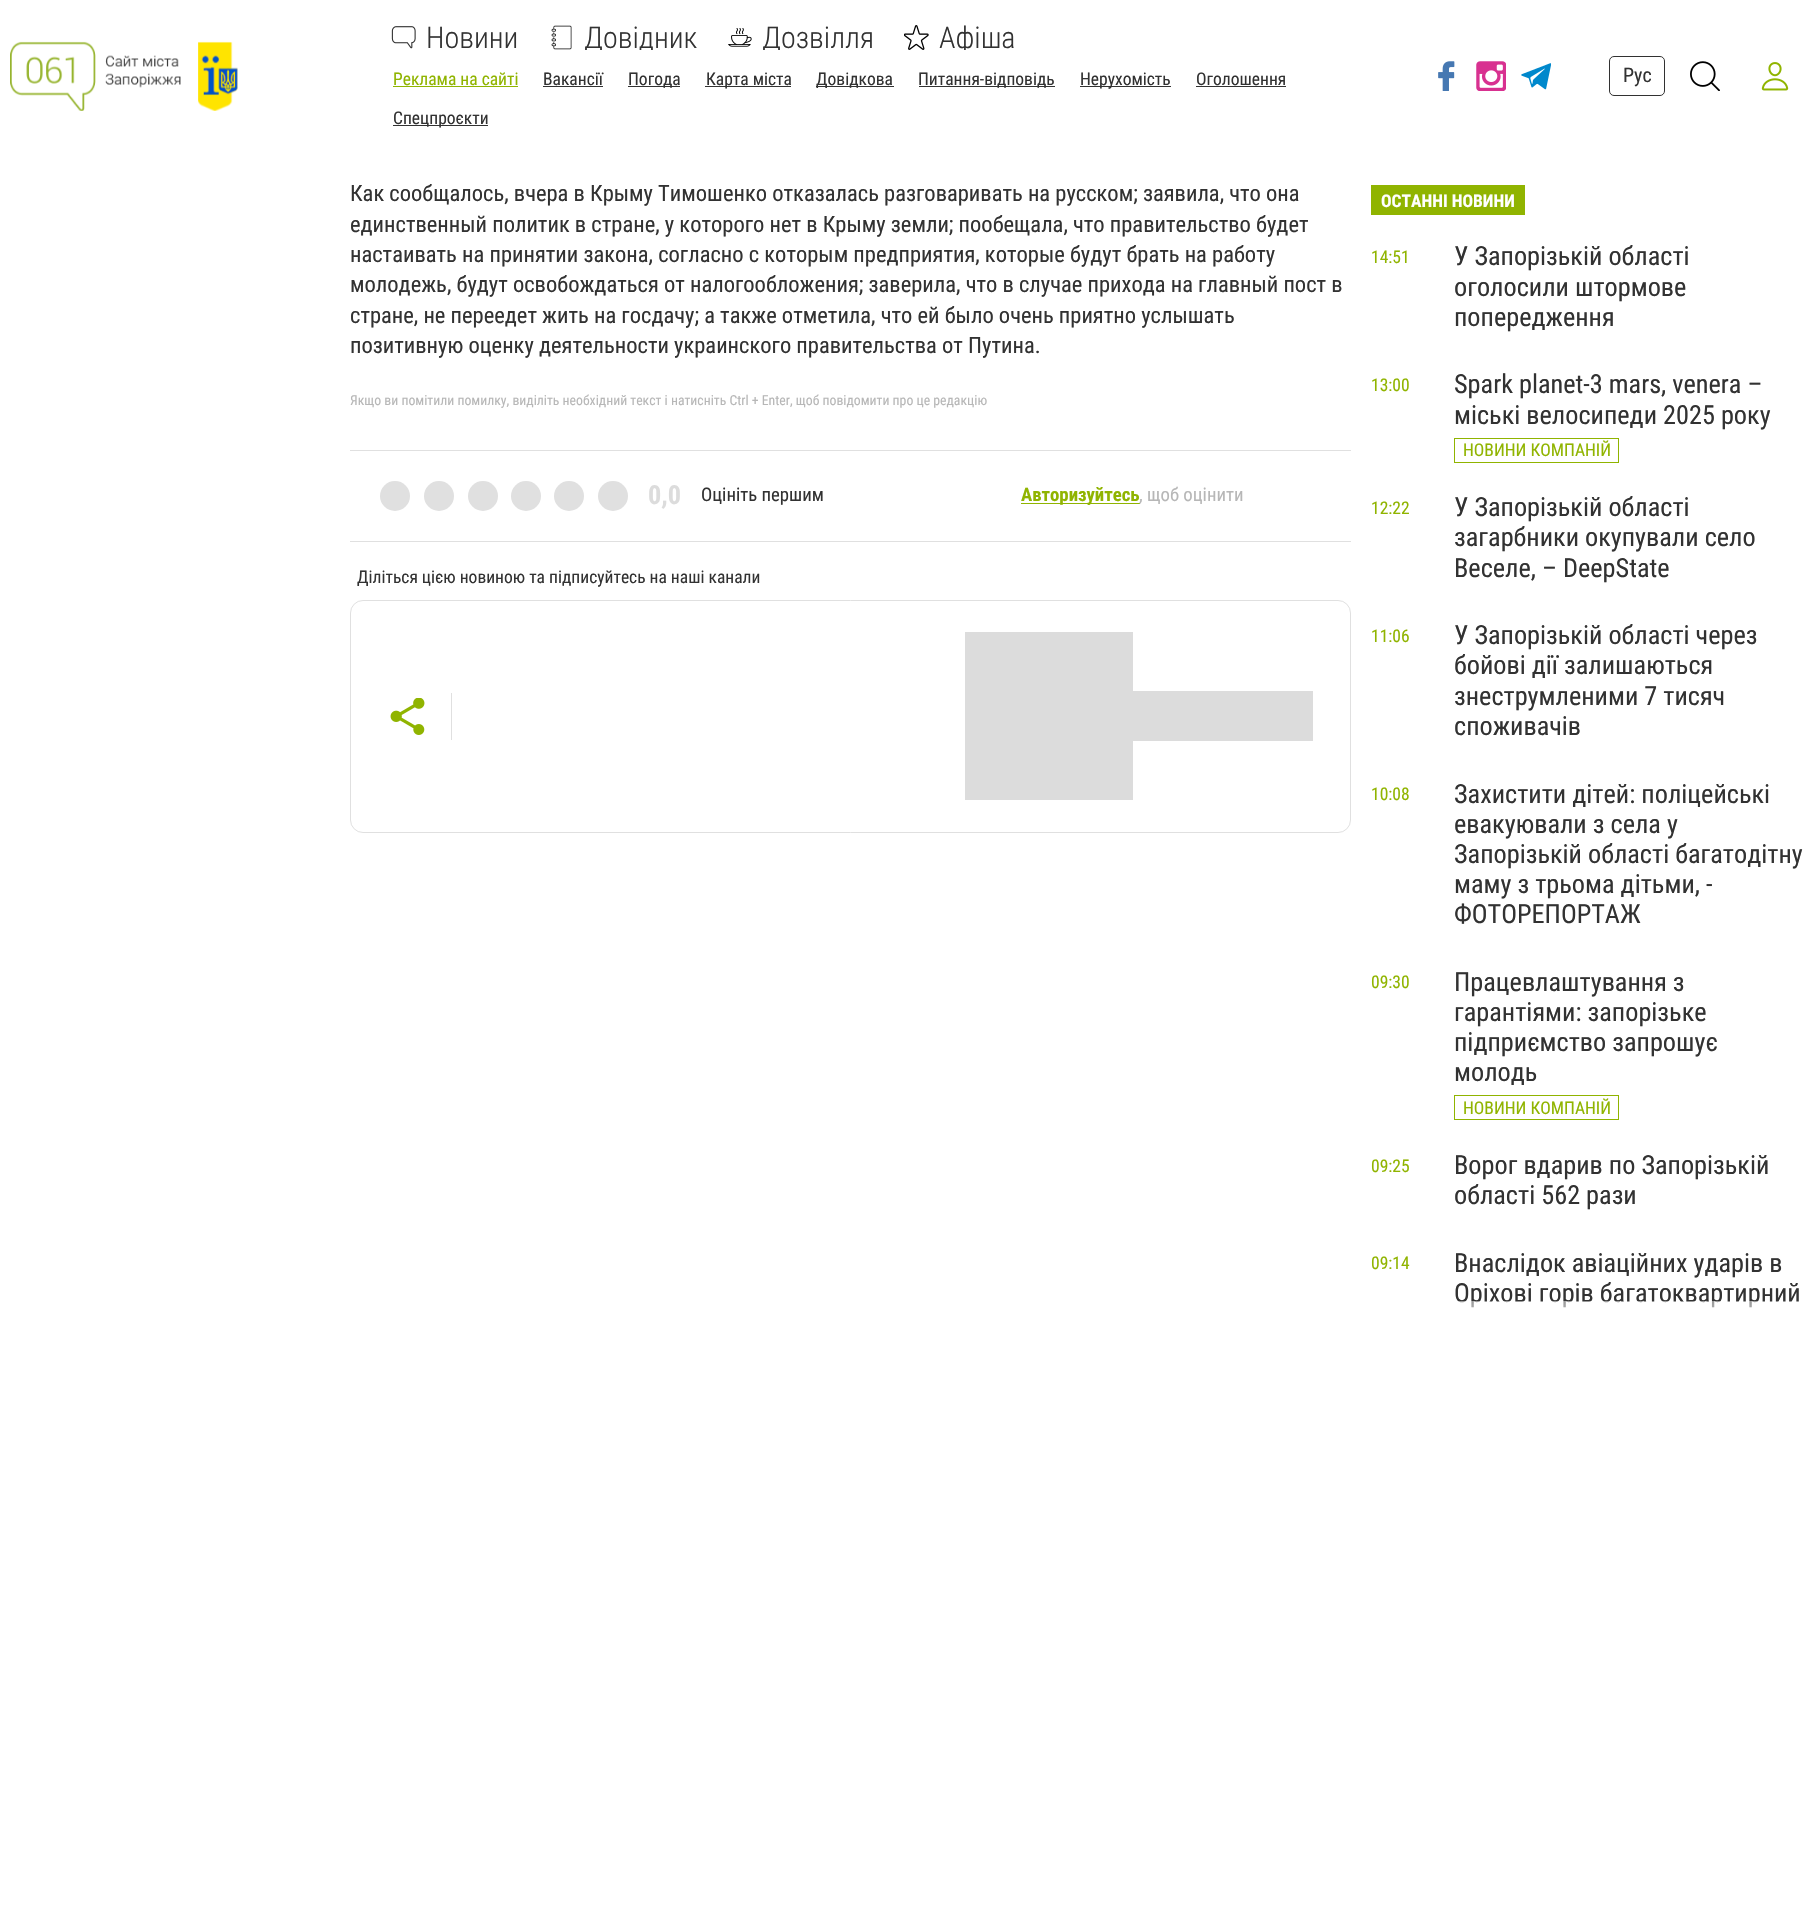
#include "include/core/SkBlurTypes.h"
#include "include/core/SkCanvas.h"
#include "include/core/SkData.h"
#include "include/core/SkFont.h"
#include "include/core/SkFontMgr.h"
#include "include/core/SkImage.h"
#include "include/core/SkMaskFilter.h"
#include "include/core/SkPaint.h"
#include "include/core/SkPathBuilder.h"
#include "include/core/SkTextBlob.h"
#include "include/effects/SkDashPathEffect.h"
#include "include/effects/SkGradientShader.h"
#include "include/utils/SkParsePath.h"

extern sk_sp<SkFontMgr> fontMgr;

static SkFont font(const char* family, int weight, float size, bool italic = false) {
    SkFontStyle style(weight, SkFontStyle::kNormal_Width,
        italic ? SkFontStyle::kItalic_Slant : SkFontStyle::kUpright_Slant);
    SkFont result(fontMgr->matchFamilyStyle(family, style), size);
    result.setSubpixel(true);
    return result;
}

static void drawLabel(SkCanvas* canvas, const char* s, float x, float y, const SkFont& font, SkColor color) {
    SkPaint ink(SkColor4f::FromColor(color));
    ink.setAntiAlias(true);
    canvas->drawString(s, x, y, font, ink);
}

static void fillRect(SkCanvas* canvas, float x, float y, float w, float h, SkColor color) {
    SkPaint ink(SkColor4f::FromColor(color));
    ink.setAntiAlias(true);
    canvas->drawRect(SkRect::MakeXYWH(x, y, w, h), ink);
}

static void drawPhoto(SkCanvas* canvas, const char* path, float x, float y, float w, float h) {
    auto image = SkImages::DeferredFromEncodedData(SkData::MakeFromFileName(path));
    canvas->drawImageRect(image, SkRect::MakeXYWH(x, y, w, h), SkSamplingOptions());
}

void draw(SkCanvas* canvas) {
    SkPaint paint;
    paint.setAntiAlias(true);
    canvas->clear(0xFFFFFFFF);
    drawPhoto(canvas, "assets/img1.png", 10, 41, 228, 70);
    drawPhoto(canvas, "assets/img2.png", 391, 26, 25, 23);
    SkFont font1 = font("Roboto Condensed", 300, 30);
    drawLabel(canvas, "Новини", 426, 48, font1, 0xFF323232);
    drawPhoto(canvas, "assets/img3.png", 551, 25, 21, 25);
    canvas->save();
    canvas->clipRect(SkRect::MakeXYWH(549, 25, 149, 25));
    drawLabel(canvas, "Довідник", 584, 48, font1, 0xFF323232);
    canvas->restore();
    drawPhoto(canvas, "assets/img4.png", 728, 28, 24, 19);
    canvas->save();
    canvas->clipRect(SkRect::MakeXYWH(728, 25, 146, 25));
    drawLabel(canvas, "Дозвілля", 762, 48, font1, 0xFF323232);
    canvas->restore();
    drawPhoto(canvas, "assets/img5.png", 904, 25, 25, 25);
    canvas->save();
    canvas->clipRect(SkRect::MakeXYWH(904, 25, 111, 25));
    drawLabel(canvas, "Афіша", 939, 48, font1, 0xFF323232);
    canvas->restore();
    SkFont font2 = font("Roboto Condensed", 400, 17.5f);
    drawLabel(canvas, "Реклама на сайті", 393, 85, font2, 0xFF90B400);
    fillRect(canvas, 393, 86, 125, 1, 0xFF90B400);
    drawLabel(canvas, "Вакансії", 543, 85, font2, 0xFF323232);
    fillRect(canvas, 543, 86, 60, 1, 0xFF323232);
    fillRect(canvas, 628, 86, 52, 1, 0xFF323232);
    drawLabel(canvas, "Погода", 628, 85, font2, 0xFF323232);
    fillRect(canvas, 705, 86, 86, 1, 0xFF323232);
    drawLabel(canvas, "Карта міста", 706, 85, font2, 0xFF323232);
    fillRect(canvas, 816, 86, 78, 1, 0xFF323232);
    drawLabel(canvas, "Довідкова", 816, 85, font2, 0xFF323232);
    fillRect(canvas, 919, 86, 136, 1, 0xFF323232);
    drawLabel(canvas, "Питання-відповідь", 918, 85, font2, 0xFF323232);
    fillRect(canvas, 1080, 86, 91, 1, 0xFF323232);
    drawLabel(canvas, "Нерухомість", 1080, 85, font2, 0xFF323232);
    drawLabel(canvas, "Оголошення", 1196, 85, font2, 0xFF323232);
    fillRect(canvas, 1196, 86, 90, 1, 0xFF323232);
    fillRect(canvas, 393, 125, 95, 1, 0xFF323232);
    drawLabel(canvas, "Спецпроєкти", 393, 124, font2, 0xFF323232);
    drawPhoto(canvas, "assets/img6.png", 1438, 61, 17, 30);
    drawPhoto(canvas, "assets/img7.png", 1476, 61, 30, 30);
    drawPhoto(canvas, "assets/img8.png", 1521, 63, 30, 27);
    paint.setStroke(true);
    paint.setStrokeWidth(1);
    paint.setColor(0xFF323232);
    canvas->drawRoundRect(SkRect::MakeXYWH(1609.5f, 56.5f, 55, 39), 4.5f, 4.5f, paint);
    SkFont font3 = font("Roboto Condensed", 400, 20);
    drawLabel(canvas, "Рус", 1623, 82, font3, 0xFF323232);
    drawPhoto(canvas, "assets/img9.png", 1690, 61, 30, 30);
    drawPhoto(canvas, "assets/img10.png", 1761, 62, 28, 29);
    SkFont font4 = font("Roboto Condensed", 400, 22.5f);
    drawLabel(canvas, "Как сообщалось, вчера в Крыму Тимошенко отказалась разговаривать на русском; заявила, что она", 350, 201, font4, 0xFF323232);
    drawLabel(canvas, "единственный политик в стране, у которого нет в Крыму земли; пообещала, что правительство будет", 350, 232, font4, 0xFF323232);
    drawLabel(canvas, "настаивать на принятии закона, согласно с которым предприятия, которые будут брать на работу", 350, 262, font4, 0xFF323232);
    drawLabel(canvas, "молодежь, будут освобождаться от налогообложения; заверила, что в случае прихода на главный пост в", 350, 292, font4, 0xFF323232);
    drawLabel(canvas, "стране, не переедет жить на госдачу; а также отметила, что ей было очень приятно услышать", 350, 323, font4, 0xFF323232);
    drawLabel(canvas, "позитивную оценку деятельности украинского правительства от Путина.", 350, 353, font4, 0xFF323232);
    SkFont font5 = font("Roboto Condensed", 400, 13.75f);
    drawLabel(canvas, "Якщо ви помітили помилку, виділіть необхідний текст і натисніть Ctrl + Enter, щоб повідомити про це редакцію", 350, 405, font5, 0xFFB7B7B7);
    fillRect(canvas, 350, 450, 1001, 1, 0xFFE0E0E0);
    fillRect(canvas, 350, 541, 1001, 1, 0xFFE0E0E0);
    paint.setStroke(false);
    paint.setColor(0xFFE0E0E0);
    canvas->drawCircle(395, 496, 15, paint);
    canvas->drawCircle(439, 496, 15, paint);
    canvas->drawCircle(483, 496, 15, paint);
    canvas->drawCircle(526, 496, 15, paint);
    canvas->drawCircle(569, 496, 15, paint);
    canvas->drawCircle(613, 496, 15, paint);
    SkFont font6 = font("Roboto Condensed", 700, 26.25f);
    drawLabel(canvas, "0,0", 648, 504, font6, 0xFFDCDCDC);
    SkFont font7 = font("Roboto Condensed", 400, 18.75f);
    drawLabel(canvas, "Оцініть першим", 701, 501, font7, 0xFF323232);
    fillRect(canvas, 1021, 503, 119, 1, 0xFF90B400);
    SkFont font8 = font("Roboto Condensed", 700, 18.75f);
    drawLabel(canvas, "Авторизуйтесь", 1021, 501, font8, 0xFF90B400);
    drawLabel(canvas, ", щоб оцінити", 1139, 501, font7, 0xFFB7B7B7);
    drawLabel(canvas, "Діліться цією новиною та підписуйтесь на наші канали", 357, 583, font2, 0xFF323232);
    paint.setStroke(true);
    canvas->drawRoundRect(SkRect::MakeXYWH(350.5f, 600.5f, 1000, 232), 12.5f, 12.5f, paint);
    drawPhoto(canvas, "assets/img11.png", 390, 698, 35, 37);
    fillRect(canvas, 451, 693, 1, 47, 0xFFE0E0E0);
    fillRect(canvas, 965, 632, 168, 168, 0xFFDCDCDC);
    fillRect(canvas, 1133, 691, 180, 50, 0xFFDCDCDC);
    fillRect(canvas, 1371, 185, 154, 30, 0xFF90B400);
    SkFont font9 = font("Roboto Condensed", 700, 17.5f);
    drawLabel(canvas, "ОСТАННІ НОВИНИ", 1381, 207, font9, 0xFFFFFFFF);
    drawLabel(canvas, "14:51", 1371, 263, font2, 0xFF90B400);
    SkFont font10 = font("Roboto Condensed", 400, 26.25f);
    drawLabel(canvas, "У Запорізькій області", 1454, 265, font10, 0xFF323232);
    drawLabel(canvas, "оголосили штормове", 1454, 296, font10, 0xFF323232);
    drawLabel(canvas, "попередження", 1454, 326, font10, 0xFF323232);
    drawLabel(canvas, "13:00", 1371, 391, font2, 0xFF90B400);
    drawLabel(canvas, "Spark planet-3 mars, venera –", 1454, 393, font10, 0xFF323232);
    drawLabel(canvas, "міські велосипеди 2025 року", 1454, 424, font10, 0xFF323232);
    paint.setColor(0xFF90B400);
    canvas->drawRect(SkRect::MakeXYWH(1454.5f, 438.5f, 164, 24), paint);
    drawLabel(canvas, "НОВИНИ КОМПАНІЙ", 1463, 456, font2, 0xFF90B400);
    drawLabel(canvas, "12:22", 1371, 514, font2, 0xFF90B400);
    drawLabel(canvas, "У Запорізькій області", 1454, 516, font10, 0xFF323232);
    drawLabel(canvas, "загарбники окупували село", 1454, 546, font10, 0xFF323232);
    drawLabel(canvas, "Веселе, – DeepState", 1454, 577, font10, 0xFF323232);
    drawLabel(canvas, "11:06", 1371, 642, font2, 0xFF90B400);
    drawLabel(canvas, "У Запорізькій області через", 1454, 644, font10, 0xFF323232);
    drawLabel(canvas, "бойові дії залишаються", 1454, 674, font10, 0xFF323232);
    drawLabel(canvas, "знеструмленими 7 тисяч", 1454, 705, font10, 0xFF323232);
    drawLabel(canvas, "споживачів", 1454, 735, font10, 0xFF323232);
    drawLabel(canvas, "10:08", 1371, 800, font2, 0xFF90B400);
    drawLabel(canvas, "Захистити дітей: поліцейські", 1454, 803, font10, 0xFF323232);
    drawLabel(canvas, "евакуювали з села у", 1454, 833, font10, 0xFF323232);
    drawLabel(canvas, "Запорізькій області багатодітну", 1454, 863, font10, 0xFF323232);
    drawLabel(canvas, "маму з трьома дітьми, -", 1454, 893, font10, 0xFF323232);
    drawLabel(canvas, "ФОТОРЕПОРТАЖ", 1454, 923, font10, 0xFF323232);
    drawLabel(canvas, "09:30", 1371, 988, font2, 0xFF90B400);
    drawLabel(canvas, "Працевлаштування з", 1454, 991, font10, 0xFF323232);
    drawLabel(canvas, "гарантіями: запорізьке", 1454, 1021, font10, 0xFF323232);
    drawLabel(canvas, "підприємство запрошує", 1454, 1051, font10, 0xFF323232);
    drawLabel(canvas, "молодь", 1454, 1081, font10, 0xFF323232);
    canvas->drawRect(SkRect::MakeXYWH(1454.5f, 1095.5f, 164, 24), paint);
    drawLabel(canvas, "НОВИНИ КОМПАНІЙ", 1463, 1114, font2, 0xFF90B400);
    drawLabel(canvas, "09:25", 1371, 1172, font2, 0xFF90B400);
    drawLabel(canvas, "Ворог вдарив по Запорізькій", 1454, 1174, font10, 0xFF323232);
    drawLabel(canvas, "області 562 рази", 1454, 1204, font10, 0xFF323232);
    drawLabel(canvas, "09:14", 1371, 1269, font2, 0xFF90B400);
    drawLabel(canvas, "Внаслідок авіаційних ударів в", 1454, 1272, font10, 0xFF323232);
    drawLabel(canvas, "Оріхові горів багатоквартирний", 1454, 1302, font10, 0xFF323232);
    fillRect(canvas, 1458, 1301, 341, 7, 0x80FFFFFF);
    paint.setStroke(false);
    {
        const SkColor colors[] = {0xFFFFFFFF, 0xBFFFFFFF, 0x80FFFFFF, 0x00FFFFFF};
        const float stops[] = {0, 0.33f, 0.67f, 1};
        const SkPoint ends[] = {{1588, 1376}, {1588, 1301}};
        paint.setShader(SkGradientShader::MakeLinear(ends, colors, stops, 4, SkTileMode::kClamp));
        paint.setAlpha(255);
    }
    canvas->drawRect(SkRect::MakeXYWH(1471, 1302, 281, 6), paint);
}
